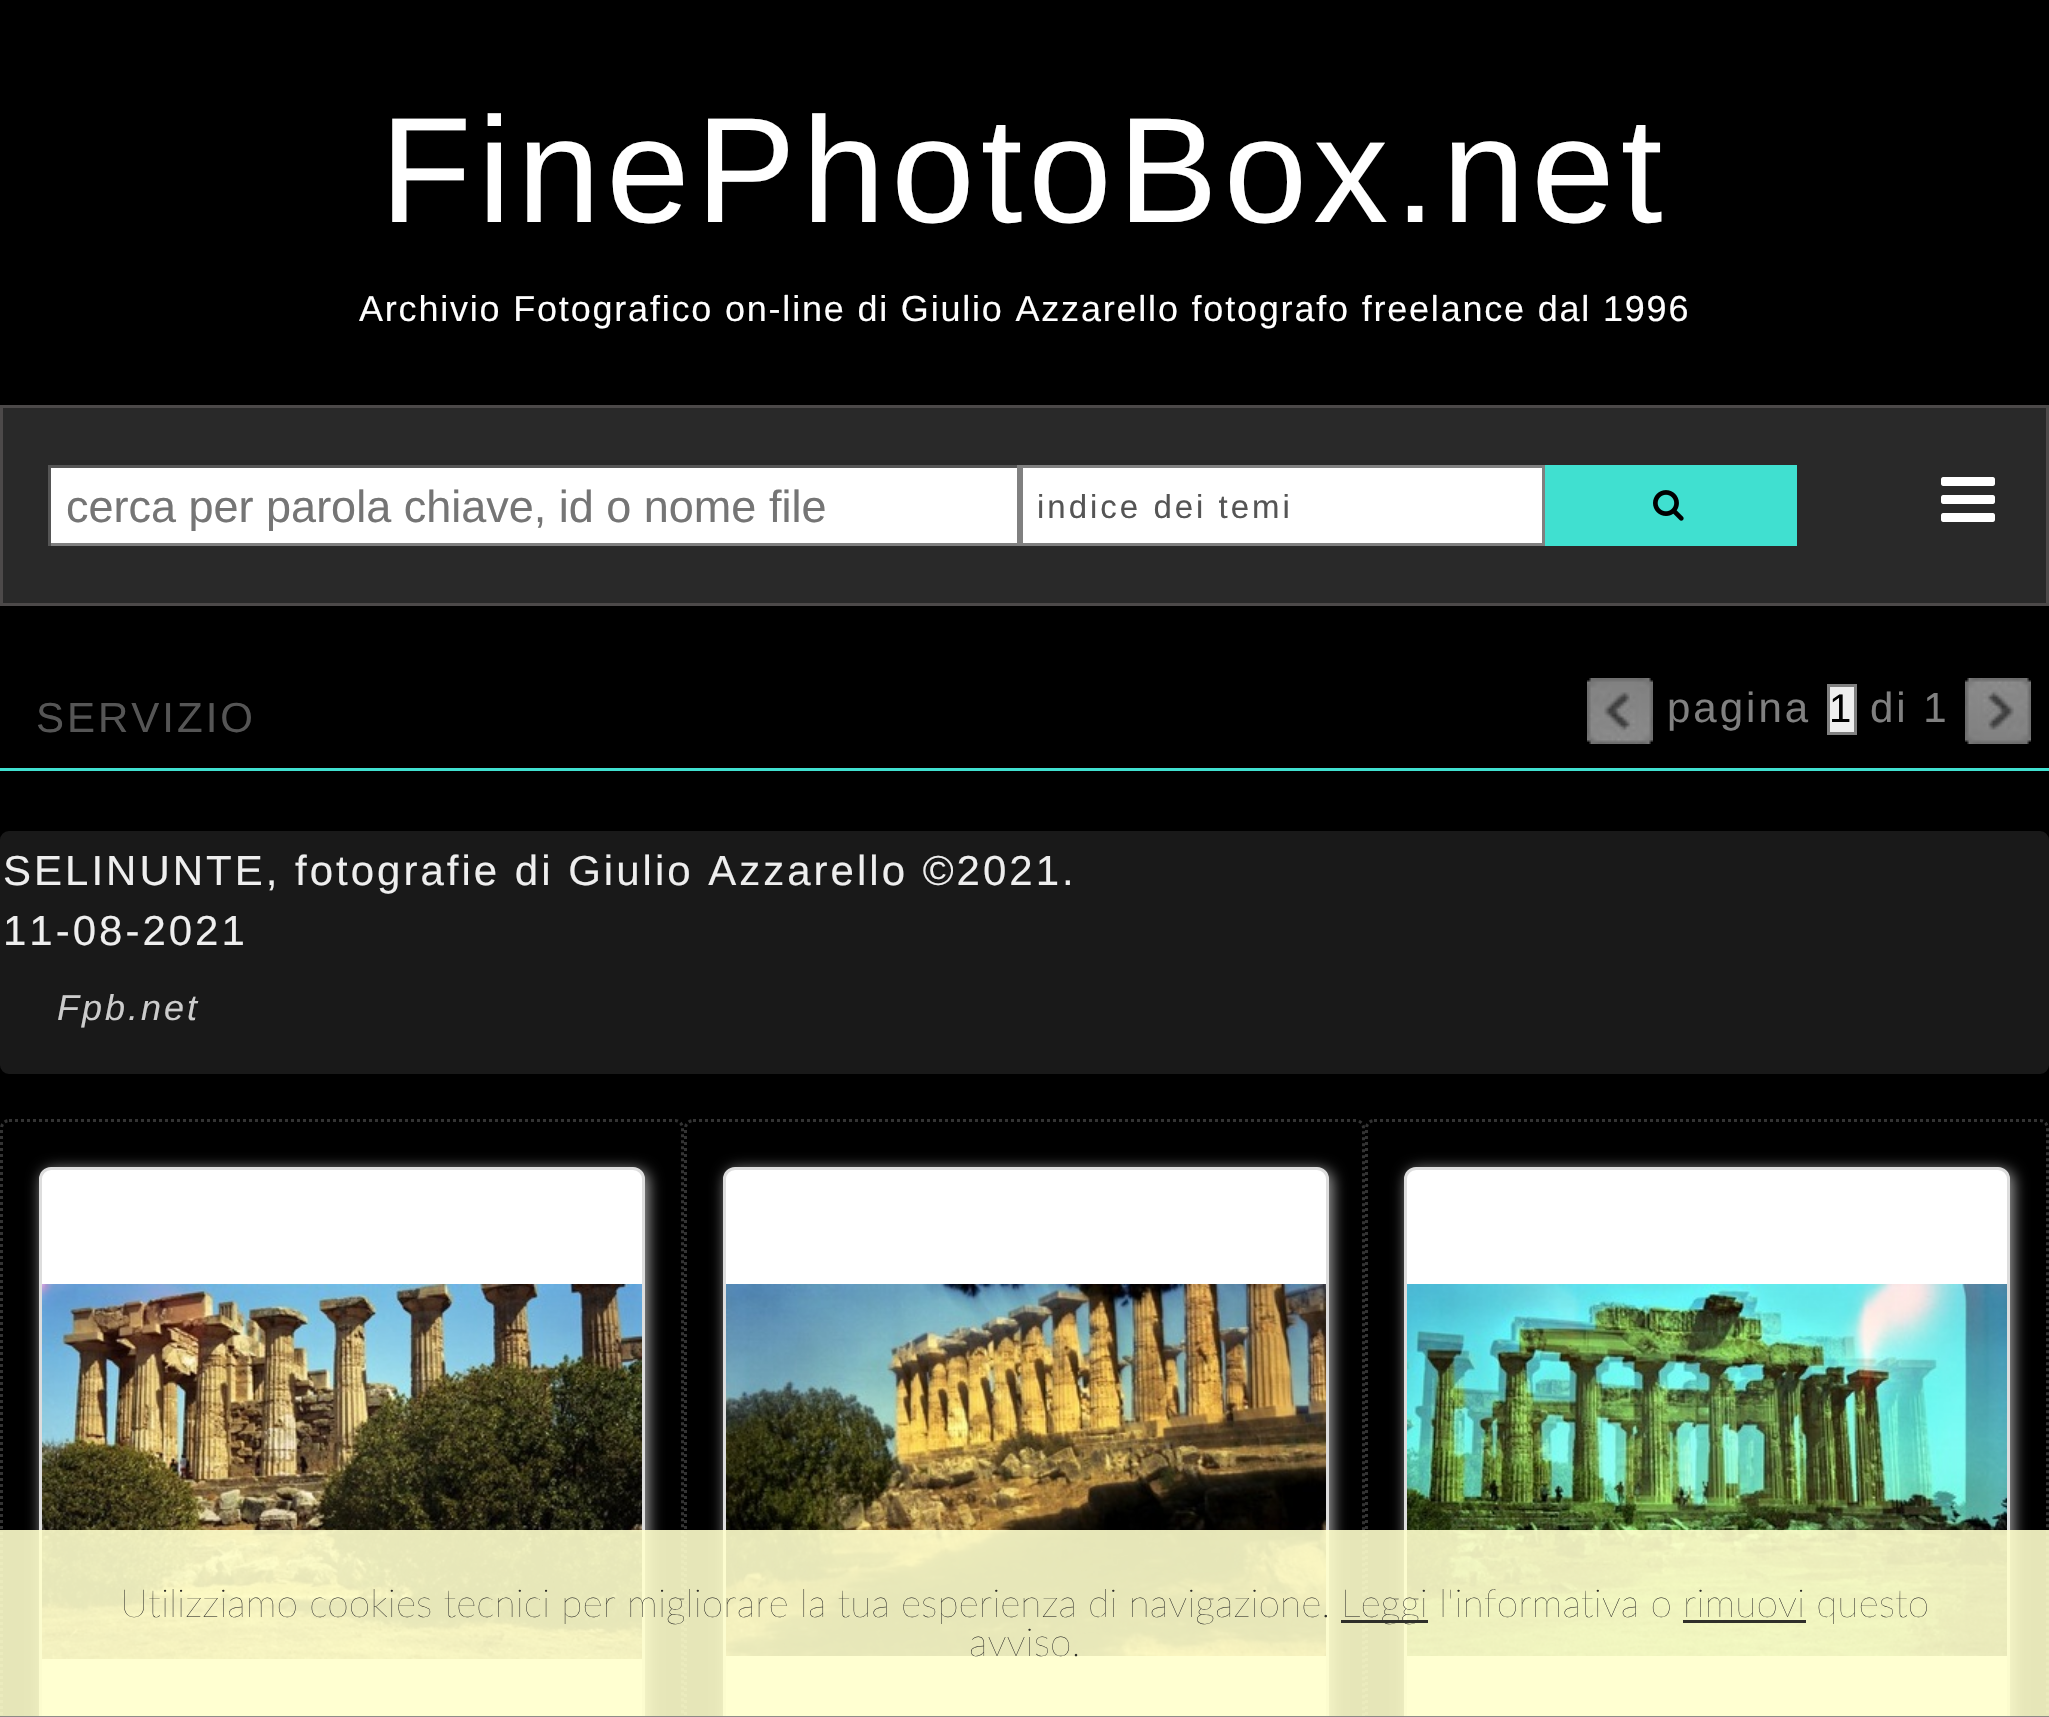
#include "include/core/SkBlurTypes.h"
#include "include/core/SkCanvas.h"
#include "include/core/SkData.h"
#include "include/core/SkFont.h"
#include "include/core/SkFontMgr.h"
#include "include/core/SkImage.h"
#include "include/core/SkMaskFilter.h"
#include "include/core/SkPaint.h"
#include "include/core/SkPathBuilder.h"
#include "include/core/SkTextBlob.h"
#include "include/effects/SkDashPathEffect.h"
#include "include/effects/SkGradientShader.h"
#include "include/utils/SkParsePath.h"

extern sk_sp<SkFontMgr> fontMgr;

static SkFont font(const char* family, int weight, float size, bool italic = false) {
    SkFontStyle style(weight, SkFontStyle::kNormal_Width,
        italic ? SkFontStyle::kItalic_Slant : SkFontStyle::kUpright_Slant);
    SkFont result(fontMgr->matchFamilyStyle(family, style), size);
    result.setSubpixel(true);
    return result;
}

static void drawLabel(SkCanvas* canvas, const char* s, float x, float y, const SkFont& font, SkColor color) {
    SkPaint ink(SkColor4f::FromColor(color));
    ink.setAntiAlias(true);
    canvas->drawString(s, x, y, font, ink);
}

static void drawTracked(SkCanvas* canvas, const char* s, float x, float y, const SkFont& font, const SkPaint& ink, float letter, float word) {
    std::vector<SkGlyphID> glyphs(font.countText(s, strlen(s), SkTextEncoding::kUTF8));
    std::vector<float> xs(glyphs.size());
    font.textToGlyphs(s, strlen(s), SkTextEncoding::kUTF8, glyphs);
    font.getXPos(glyphs, xs, x);
    float extra = 0;
    for (size_t i = 0; i < glyphs.size(); i++) {
        xs[i] += extra;
        extra += letter + word * (glyphs[i] == font.unicharToGlyph(' '));
    }
    canvas->drawTextBlob(SkTextBlob::MakeFromPosHGlyphs(glyphs, xs, y, font), 0, 0, ink);
}

static void fillRect(SkCanvas* canvas, float x, float y, float w, float h, SkColor color) {
    SkPaint ink(SkColor4f::FromColor(color));
    ink.setAntiAlias(true);
    canvas->drawRect(SkRect::MakeXYWH(x, y, w, h), ink);
}

static void drawPhoto(SkCanvas* canvas, const char* path, float x, float y, float w, float h) {
    auto image = SkImages::DeferredFromEncodedData(SkData::MakeFromFileName(path));
    canvas->drawImageRect(image, SkRect::MakeXYWH(x, y, w, h), SkSamplingOptions());
}

static SkPath parsePath(const char* data, bool evenOdd = false) {
    SkPath result = *SkParsePath::FromSVGString(data);
    if (evenOdd) result.setFillType(SkPathFillType::kEvenOdd);
    return result;
}

void draw(SkCanvas* canvas) {
    SkPaint paint;
    paint.setAntiAlias(true);
    canvas->clear(0xFF000000);
    SkFont font1 = font("Liberation Sans", 400, 150);
    paint.setColor(0xFFFFFFFF);
    drawTracked(canvas, "FinePhotoBox.net", 380, 222, font1, paint, 6, 0);
    SkFont font2 = font("Liberation Sans", 400, 36);
    drawTracked(canvas, "Archivio Fotografico on-line di Giulio Azzarello fotografo freelance dal 1996", 359, 321, font2, paint, 1.8f, 0);
    paint.setColor(0xFF292929);
    canvas->drawRect(SkRect::MakeXYWH(1.5f, 406.5f, 2046, 198), paint);
    paint.setStroke(true);
    paint.setStrokeWidth(3);
    paint.setColor(0xFF4C4949);
    canvas->drawRect(SkRect::MakeXYWH(1.5f, 406.5f, 2046, 198), paint);
    fillRect(canvas, 51, 468, 966, 75, 0xFFFFFFFF);
    fillRect(canvas, 48, 465, 972, 3, 0xFF555555);
    fillRect(canvas, 1017, 465, 3, 81, 0xFF808080);
    fillRect(canvas, 48, 543, 972, 3, 0xFF808080);
    fillRect(canvas, 48, 465, 3, 81, 0xFF555555);
    canvas->save();
    canvas->clipRect(SkRect::MakeXYWH(66, 480, 951, 51));
    SkFont font3 = font("Liberation Sans", 400, 45);
    drawLabel(canvas, "cerca per parola chiave, id o nome file", 66, 522, font3, 0xFF757575);
    canvas->restore();
    paint.setStroke(false);
    paint.setColor(0xFFFFFFFF);
    canvas->drawRect(SkRect::MakeXYWH(1021.5f, 466.5f, 522, 78), paint);
    paint.setStroke(true);
    paint.setColor(0xFF808080);
    canvas->drawRect(SkRect::MakeXYWH(1021.5f, 466.5f, 522, 78), paint);
    SkFont font4 = font("Liberation Sans", 400, 33);
    paint.setStroke(false);
    paint.setColor(0xFF555555);
    drawTracked(canvas, "indice dei temi", 1037, 518, font4, paint, 3, 0);
    fillRect(canvas, 1545, 465, 252, 81, 0xFF40E0D0);
    drawPhoto(canvas, "assets/img1.png", 1653, 490, 31, 31);
    drawPhoto(canvas, "assets/img2.png", 1941, 477, 54, 45);
    fillRect(canvas, 0, 768, 2049, 3, 0xFF40E0D0);
    SkFont font5 = font("Liberation Sans", 400, 42);
    drawTracked(canvas, "SERVIZIO", 36, 732, font5, paint, 3, 0);
    drawPhoto(canvas, "assets/img3.png", 1587, 678, 66, 66);
    paint.setColor(0xFF808080);
    drawTracked(canvas, "pagina", 1667, 722, font5, paint, 3, 0);
    paint.setColor(0xFFEFEFEF);
    canvas->drawRect(SkRect::MakeXYWH(1828.5f, 685.5f, 27, 48), paint);
    paint.setStroke(true);
    paint.setColor(0xFF808080);
    canvas->drawRect(SkRect::MakeXYWH(1828.5f, 685.5f, 27, 48), paint);
    SkFont font6 = font("Liberation Sans", 400, 40);
    drawLabel(canvas, "1", 1829, 722, font6, 0xFF000000);
    paint.setStroke(false);
    drawTracked(canvas, "di 1", 1870, 722, font5, paint, 3, 0);
    drawPhoto(canvas, "assets/img4.png", 1965, 678, 66, 66);
    paint.setColor(0xFF191919);
    canvas->drawRoundRect(SkRect::MakeXYWH(1.5f, 832.5f, 2046, 240), 7.5f, 7.5f, paint);
    paint.setStroke(true);
    canvas->drawRoundRect(SkRect::MakeXYWH(1.5f, 832.5f, 2046, 240), 7.5f, 7.5f, paint);
    paint.setStroke(false);
    paint.setColor(0xFFEEEEEE);
    drawTracked(canvas, "SELINUNTE, fotografie di Giulio Azzarello ©2021.", 3, 885, font5, paint, 3, 0);
    drawTracked(canvas, "11-08-2021", 3, 945, font5, paint, 3, 0);
    SkFont font7 = font("Liberation Sans", 400, 36, true);
    paint.setColor(0xFFCCCCCC);
    drawTracked(canvas, "Fpb.net", 57, 1020, font7, paint, 3, 0);
    paint.setStroke(true);
    paint.setColor(0xFF333333);
    paint.setPathEffect(SkDashPathEffect::Make({{3, 3}}, 0));
    canvas->drawPath(parsePath("M9 1120.5H675C679 1120.5 682.5 1124 682.5 1128V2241C682.5 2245 679 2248.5 675 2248.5H9C5 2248.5 1.5 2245 1.5 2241V1128C1.5 1124 5 1120.5 9 1120.5Z"), paint);
    paint.setPathEffect(nullptr);
    paint.setStroke(false);
    paint.setColor(0xFFAAAAAA);
    paint.setMaskFilter(SkMaskFilter::MakeBlur(kNormal_SkBlurStyle, 7.5f));
    canvas->drawRoundRect(SkRect::MakeXYWH(42, 1170, 606, 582), 12, 12, paint);
    paint.setMaskFilter(nullptr);
    paint.setColor(0xFFFFFFFF);
    canvas->drawRoundRect(SkRect::MakeXYWH(40.5f, 1168.5f, 603, 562), 10.5f, 10.5f, paint);
    paint.setStroke(true);
    paint.setColor(0xFFDDDDDD);
    canvas->drawRoundRect(SkRect::MakeXYWH(40.5f, 1168.5f, 603, 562), 10.5f, 10.5f, paint);
    drawPhoto(canvas, "assets/img5.png", 42, 1284, 600, 375);
    paint.setColor(0xFF333333);
    paint.setPathEffect(SkDashPathEffect::Make({{3, 3}}, 0));
    canvas->drawPath(parsePath("M693 1120.5H1356C1360 1120.5 1363.5 1124 1363.5 1128V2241C1363.5 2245 1360 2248.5 1356 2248.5H693C689 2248.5 685.5 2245 685.5 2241V1128C685.5 1124 689 1120.5 693 1120.5Z"), paint);
    paint.setPathEffect(nullptr);
    paint.setStroke(false);
    paint.setColor(0xFFAAAAAA);
    paint.setMaskFilter(SkMaskFilter::MakeBlur(kNormal_SkBlurStyle, 7.5f));
    canvas->drawRoundRect(SkRect::MakeXYWH(726, 1170, 606, 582), 12, 12, paint);
    paint.setMaskFilter(nullptr);
    paint.setColor(0xFFFFFFFF);
    canvas->drawRoundRect(SkRect::MakeXYWH(724.5f, 1168.5f, 603, 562), 10.5f, 10.5f, paint);
    paint.setStroke(true);
    paint.setColor(0xFFDDDDDD);
    canvas->drawRoundRect(SkRect::MakeXYWH(724.5f, 1168.5f, 603, 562), 10.5f, 10.5f, paint);
    drawPhoto(canvas, "assets/img6.png", 726, 1284, 600, 372);
    paint.setColor(0xFF333333);
    paint.setPathEffect(SkDashPathEffect::Make({{3, 3}}, 0));
    canvas->drawPath(parsePath("M1374 1120.5H2040C2044 1120.5 2047.5 1124 2047.5 1128V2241C2047.5 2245 2044 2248.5 2040 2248.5H1374C1370 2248.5 1366.5 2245 1366.5 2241V1128C1366.5 1124 1370 1120.5 1374 1120.5Z"), paint);
    paint.setPathEffect(nullptr);
    paint.setStroke(false);
    paint.setColor(0xFFAAAAAA);
    paint.setMaskFilter(SkMaskFilter::MakeBlur(kNormal_SkBlurStyle, 7.5f));
    canvas->drawRoundRect(SkRect::MakeXYWH(1407, 1170, 606, 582), 12, 12, paint);
    paint.setMaskFilter(nullptr);
    paint.setColor(0xFFFFFFFF);
    canvas->drawRoundRect(SkRect::MakeXYWH(1405.5f, 1168.5f, 603, 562), 10.5f, 10.5f, paint);
    paint.setStroke(true);
    paint.setColor(0xFFDDDDDD);
    canvas->drawRoundRect(SkRect::MakeXYWH(1405.5f, 1168.5f, 603, 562), 10.5f, 10.5f, paint);
    drawPhoto(canvas, "assets/img7.png", 1407, 1284, 600, 372);
    fillRect(canvas, 0, 1530, 2049, 187, 0xE6FFFFCC);
    fillRect(canvas, 0, 1716, 2049, 1, 0xE6808080);
    SkFont font8 = font("Lato", 200, 39);
    drawLabel(canvas, "Utilizziamo cookies tecnici per migliorare la tua esperienza di navigazione.", 120, 1617, font8, 0xFF2F2F2A);
    fillRect(canvas, 1341, 1620, 87, 3, 0xE61A1A1A);
    drawLabel(canvas, "Leggi", 1341, 1617, font8, 0xFF2F2F2A);
    drawLabel(canvas, "l'informativa o rimuovi questo", 1439, 1617, font8, 0xFF2F2F2A);
    fillRect(canvas, 1683, 1620, 123, 3, 0xE61A1A1A);
    drawLabel(canvas, "avviso.", 969, 1656, font8, 0xFF2F2F2A);
}
